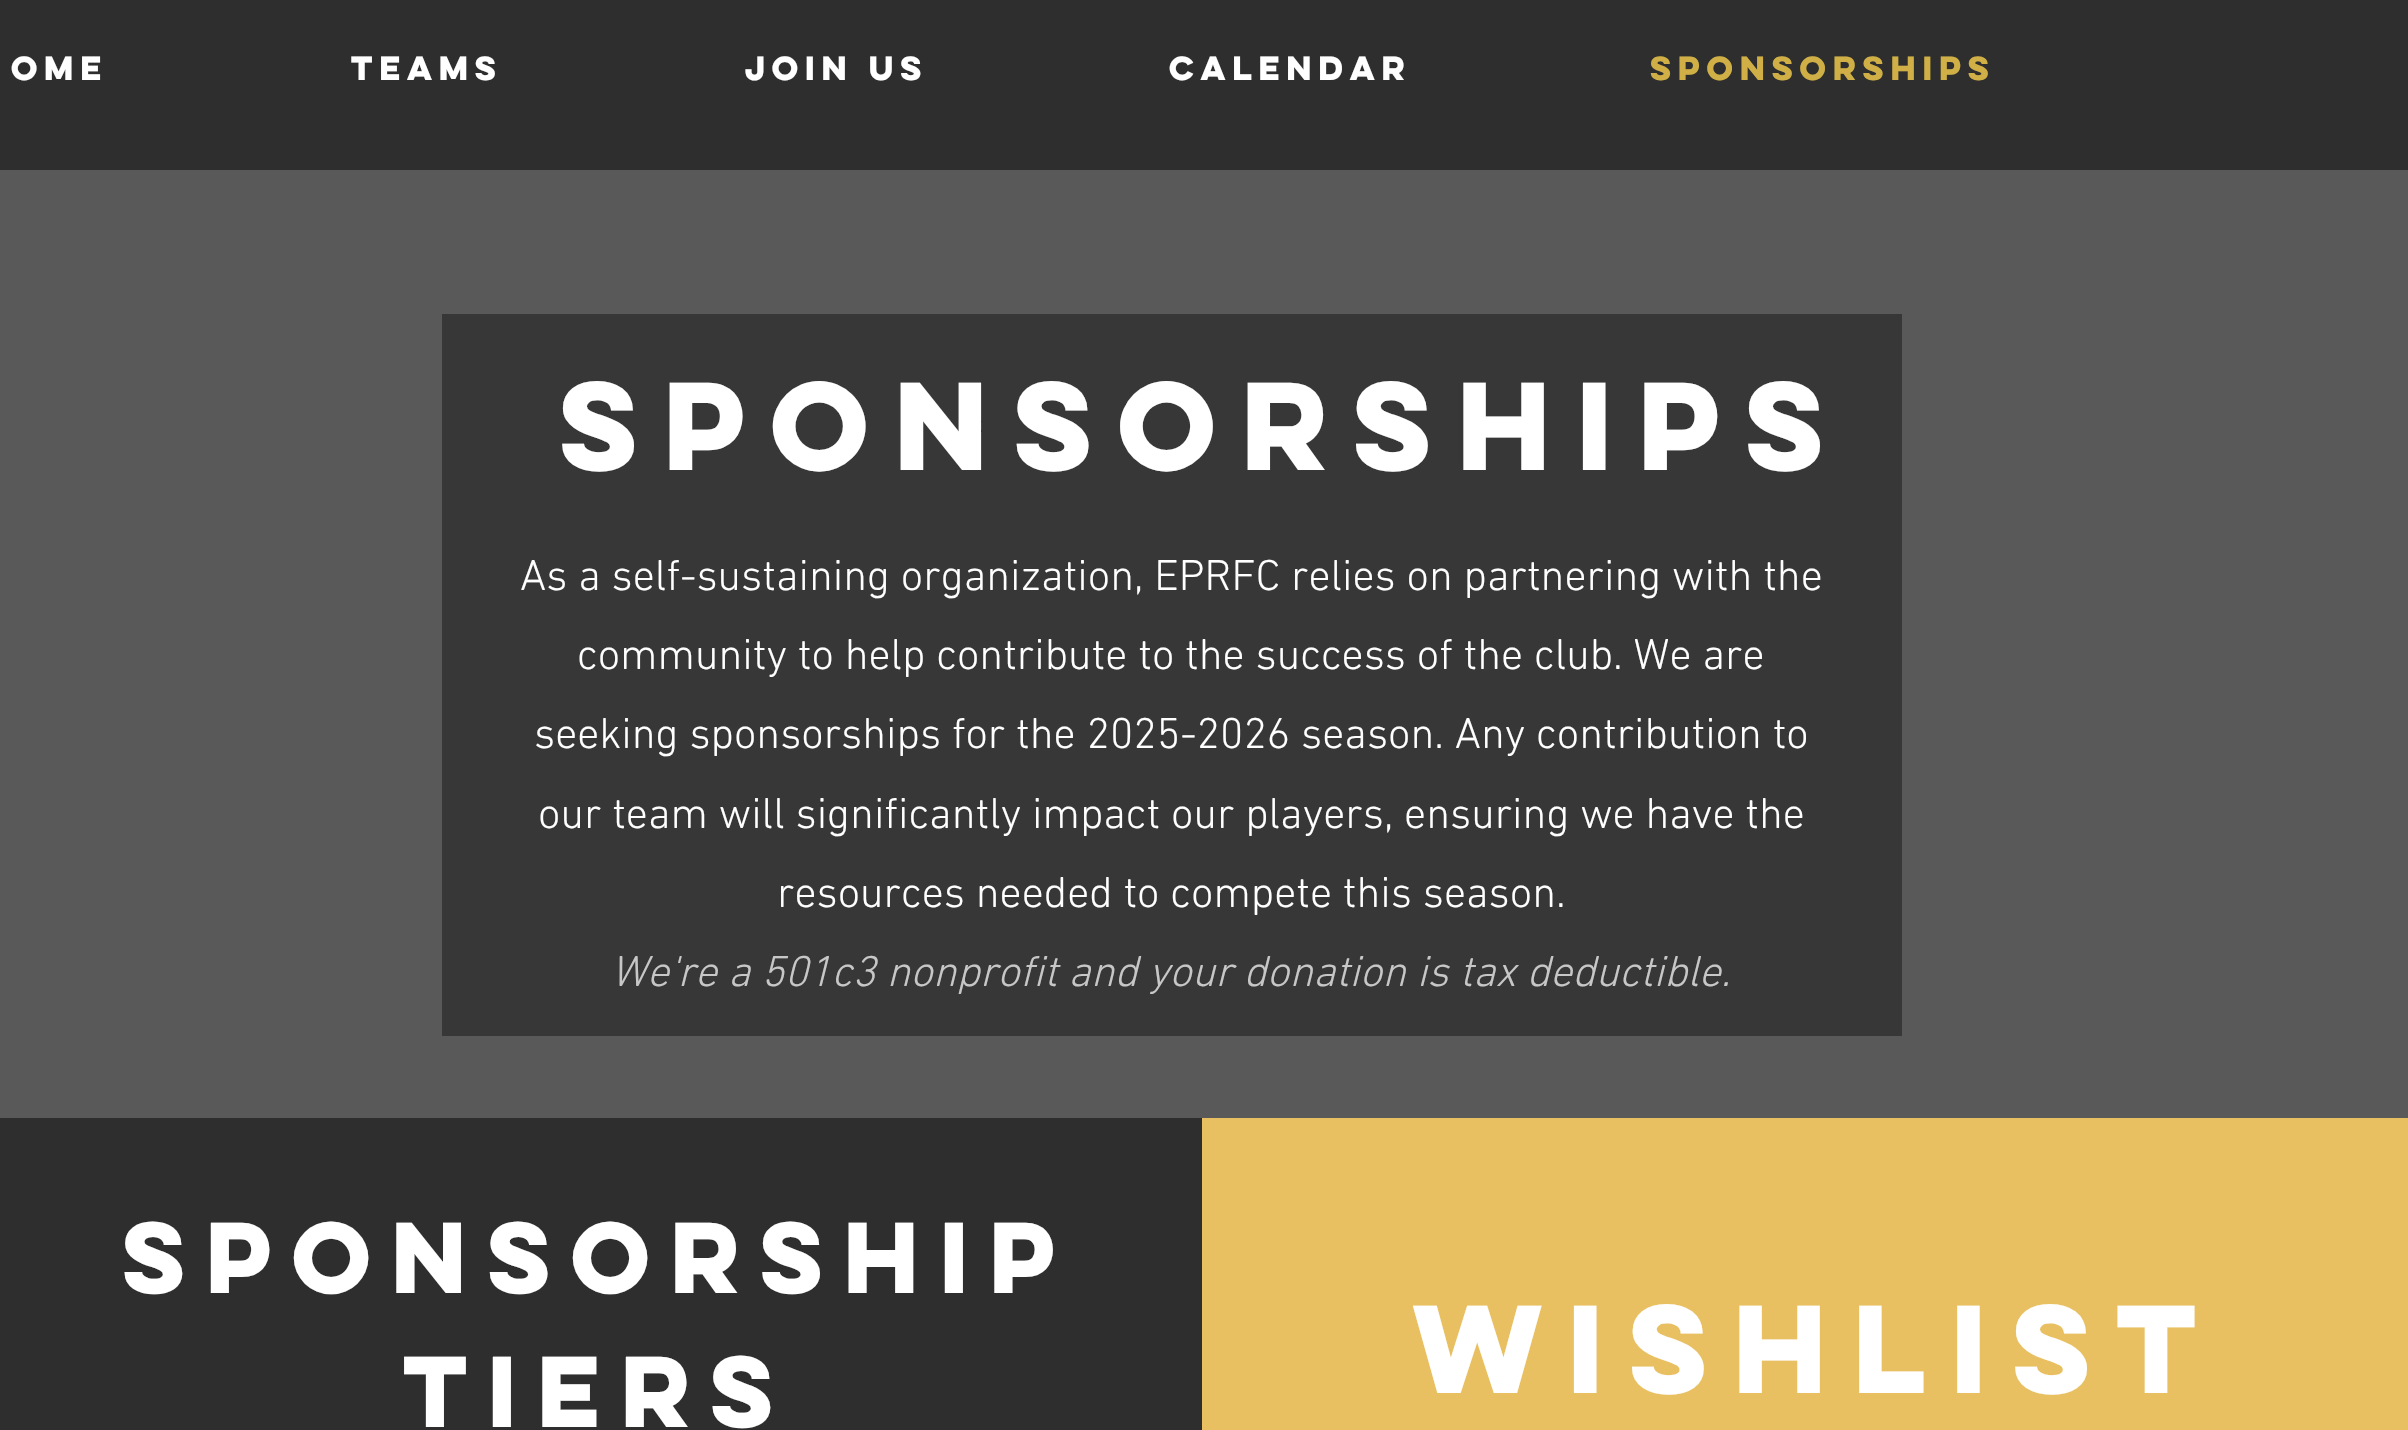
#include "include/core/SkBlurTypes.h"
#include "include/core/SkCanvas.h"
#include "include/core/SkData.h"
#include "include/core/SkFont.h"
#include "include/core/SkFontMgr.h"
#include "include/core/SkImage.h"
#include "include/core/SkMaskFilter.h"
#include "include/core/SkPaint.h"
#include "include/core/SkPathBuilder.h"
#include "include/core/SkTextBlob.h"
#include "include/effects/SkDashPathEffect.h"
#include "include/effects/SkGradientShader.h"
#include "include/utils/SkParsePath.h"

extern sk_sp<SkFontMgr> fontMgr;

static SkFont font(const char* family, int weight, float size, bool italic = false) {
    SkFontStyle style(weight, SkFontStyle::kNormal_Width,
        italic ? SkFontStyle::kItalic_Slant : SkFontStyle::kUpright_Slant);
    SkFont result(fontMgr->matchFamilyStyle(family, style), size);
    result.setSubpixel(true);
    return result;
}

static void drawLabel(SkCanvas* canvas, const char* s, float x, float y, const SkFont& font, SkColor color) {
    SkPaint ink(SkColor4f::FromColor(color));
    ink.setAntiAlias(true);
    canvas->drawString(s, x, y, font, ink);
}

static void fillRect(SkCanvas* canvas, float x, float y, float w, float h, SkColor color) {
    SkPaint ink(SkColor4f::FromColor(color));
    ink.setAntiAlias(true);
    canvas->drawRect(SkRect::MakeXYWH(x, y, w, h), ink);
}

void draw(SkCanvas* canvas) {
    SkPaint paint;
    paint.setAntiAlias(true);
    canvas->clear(0xFF2D2E2D);
    SkFont font1 = font("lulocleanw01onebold", 700, 30);
    drawLabel(canvas, "OME", 11, 80, font1, 0xFFFFFFFF);
    drawLabel(canvas, "TEAMS", 351, 80, font1, 0xFFFFFFFF);
    drawLabel(canvas, "JOIN US", 745, 80, font1, 0xFFFFFFFF);
    drawLabel(canvas, "Calendar", 1169, 80, font1, 0xFFFFFFFF);
    drawLabel(canvas, "Sponsorships", 1650, 80, font1, 0xFFD0B046);
    fillRect(canvas, 0, 170, 2408, 948, 0xFF595959);
    fillRect(canvas, 442, 314, 1460, 722, 0xFF383737);
    SkFont font2 = font("lulocleanw01onebold", 700, 112);
    drawLabel(canvas, "Sponsorships", 559, 470, font2, 0xFFFFFFFF);
    SkFont font3 = font("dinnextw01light", 300, 44);
    drawLabel(canvas, "As a self-sustaining organization, EPRFC relies on partnering with the", 520, 590, font3, 0xFFFFFFFF);
    drawLabel(canvas, "community to help contribute to the success of the club. We are", 577, 669, font3, 0xFFFFFFFF);
    drawLabel(canvas, "seeking sponsorships for the 2025-2026 season. Any contribution to", 534, 748, font3, 0xFFFFFFFF);
    drawLabel(canvas, "our team will significantly impact our players, ensuring we have the", 538, 828, font3, 0xFFFFFFFF);
    drawLabel(canvas, "resources needed to compete this season.", 777, 907, font3, 0xFFFFFFFF);
    SkFont font4 = font("dinnextw01light", 300, 44, true);
    drawLabel(canvas, "We're a 501c3 nonprofit and your donation is tax deductible.", 611, 986, font4, 0xFFC7C7C7);
    SkFont font5 = font("lulocleanw01onebold", 700, 90);
    drawLabel(canvas, "Sponsorship", 122, 1293, font5, 0xFFFFFFFF);
    drawLabel(canvas, "Tiers", 403, 1427, font5, 0xFFFFFFFF);
    fillRect(canvas, 1202, 1118, 1206, 312, 0xFFE8C061);
    drawLabel(canvas, "WISHLIST", 1413, 1393, font2, 0xFFFFFFFF);
}
